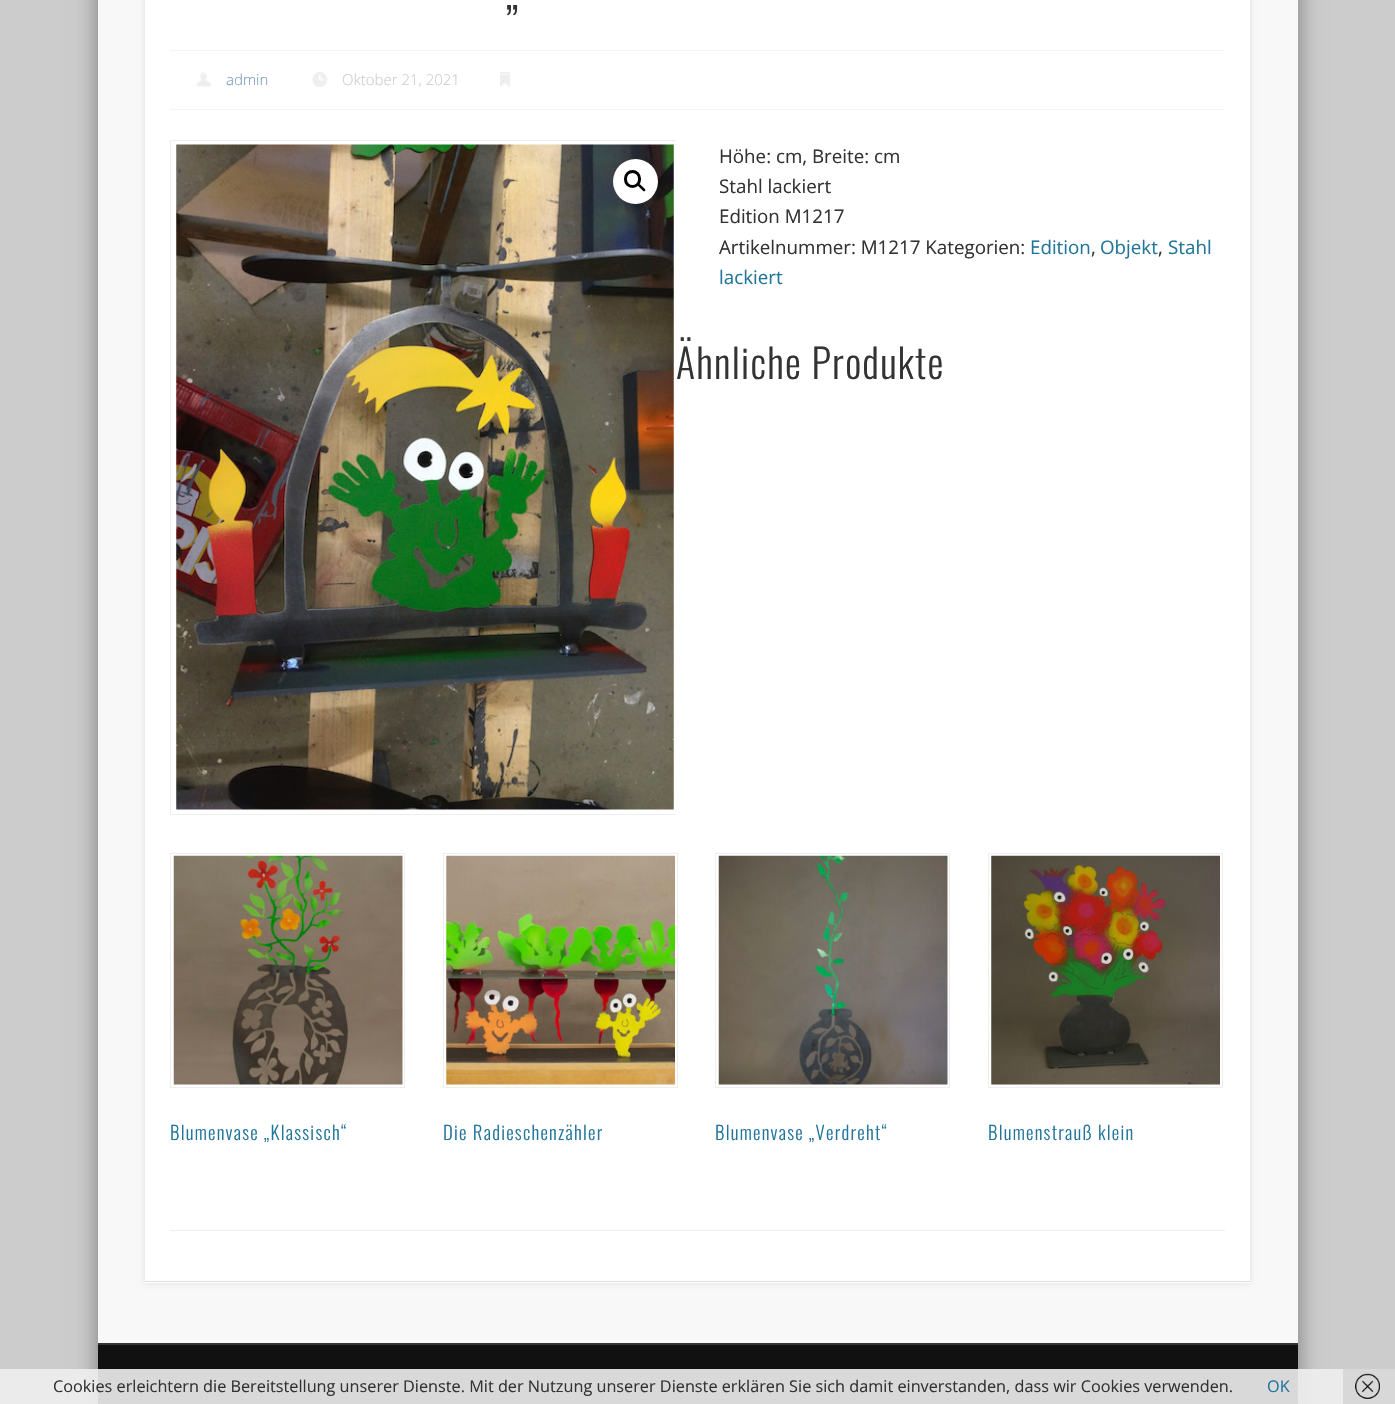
#include "include/core/SkBlurTypes.h"
#include "include/core/SkCanvas.h"
#include "include/core/SkData.h"
#include "include/core/SkFont.h"
#include "include/core/SkFontMgr.h"
#include "include/core/SkImage.h"
#include "include/core/SkMaskFilter.h"
#include "include/core/SkPaint.h"
#include "include/core/SkPathBuilder.h"
#include "include/core/SkTextBlob.h"
#include "include/effects/SkDashPathEffect.h"
#include "include/effects/SkGradientShader.h"
#include "include/utils/SkParsePath.h"

extern sk_sp<SkFontMgr> fontMgr;

static SkFont font(const char* family, int weight, float size, bool italic = false) {
    SkFontStyle style(weight, SkFontStyle::kNormal_Width,
        italic ? SkFontStyle::kItalic_Slant : SkFontStyle::kUpright_Slant);
    SkFont result(fontMgr->matchFamilyStyle(family, style), size);
    result.setSubpixel(true);
    return result;
}

static void drawLabel(SkCanvas* canvas, const char* s, float x, float y, const SkFont& font, SkColor color) {
    SkPaint ink(SkColor4f::FromColor(color));
    ink.setAntiAlias(true);
    canvas->drawString(s, x, y, font, ink);
}

static void drawTracked(SkCanvas* canvas, const char* s, float x, float y, const SkFont& font, const SkPaint& ink, float letter, float word) {
    std::vector<SkGlyphID> glyphs(font.countText(s, strlen(s), SkTextEncoding::kUTF8));
    std::vector<float> xs(glyphs.size());
    font.textToGlyphs(s, strlen(s), SkTextEncoding::kUTF8, glyphs);
    font.getXPos(glyphs, xs, x);
    float extra = 0;
    for (size_t i = 0; i < glyphs.size(); i++) {
        xs[i] += extra;
        extra += letter + word * (glyphs[i] == font.unicharToGlyph(' '));
    }
    canvas->drawTextBlob(SkTextBlob::MakeFromPosHGlyphs(glyphs, xs, y, font), 0, 0, ink);
}

static void fillRect(SkCanvas* canvas, float x, float y, float w, float h, SkColor color) {
    SkPaint ink(SkColor4f::FromColor(color));
    ink.setAntiAlias(true);
    canvas->drawRect(SkRect::MakeXYWH(x, y, w, h), ink);
}

static void drawPhoto(SkCanvas* canvas, const char* path, float x, float y, float w, float h) {
    auto image = SkImages::DeferredFromEncodedData(SkData::MakeFromFileName(path));
    canvas->drawImageRect(image, SkRect::MakeXYWH(x, y, w, h), SkSamplingOptions());
}

static SkPath parsePath(const char* data, bool evenOdd = false) {
    SkPath result = *SkParsePath::FromSVGString(data);
    if (evenOdd) result.setFillType(SkPathFillType::kEvenOdd);
    return result;
}

void draw(SkCanvas* canvas) {
    SkPaint paint;
    paint.setAntiAlias(true);
    canvas->clear(0xFFCCCCCC);
    paint.setColor(0x66000000);
    paint.setMaskFilter(SkMaskFilter::MakeBlur(kNormal_SkBlurStyle, 11));
    canvas->drawRect(SkRect::MakeXYWH(98, -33, 1200, 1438), paint);
    paint.setMaskFilter(nullptr);
    fillRect(canvas, 98, 0, 1200, 1343, 0xFFF8F8F8);
    paint.setColor(0x1A000000);
    paint.setMaskFilter(SkMaskFilter::MakeBlur(kNormal_SkBlurStyle, 3));
    canvas->drawRect(SkRect::MakeXYWH(145, -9, 1105, 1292), paint);
    paint.setMaskFilter(nullptr);
    fillRect(canvas, 145, 0, 1105, 1283, 0xFFFFFFFF);
    fillRect(canvas, 145, 1281, 1105, 1, 0xFFDEDEDE);
    SkFont font1 = font("Oswald", 300, 45);
    paint.setColor(0xFF333333);
    drawTracked(canvas, "„", 506, 10, font1, paint, 1.25f, 0);
    fillRect(canvas, 170, 50, 1055, 1, 0xFFF4F4F4);
    fillRect(canvas, 170, 109, 1055, 1, 0xFFF4F4F4);
    drawPhoto(canvas, "assets/img1.png", 196, 72, 15, 15);
    SkFont font2 = font("Open Sans", 300, 15);
    drawLabel(canvas, "admin", 226, 85, font2, 0xFF7597B9);
    drawPhoto(canvas, "assets/img2.png", 312, 72, 16, 15);
    drawLabel(canvas, "Oktober 21, 2021", 342, 85, font2, 0xFFCCCCCC);
    drawPhoto(canvas, "assets/img3.png", 500, 72, 10, 15);
    SkFont font3 = font("Oswald", 300, 40);
    drawTracked(canvas, "Ähnliche Produkte", 676, 379, font3, paint, 1.25f, 0);
    canvas->save();
    canvas->clipRect(SkRect::MakeXYWH(170, 140, 506, 675));
    paint.setStroke(true);
    paint.setStrokeWidth(1);
    paint.setColor(0xFFEEEEEE);
    canvas->drawRect(SkRect::MakeXYWH(170.5f, 140.5f, 509, 674), paint);
    canvas->restore();
    drawPhoto(canvas, "assets/img4.png", 176, 144, 498, 666);
    paint.setStroke(false);
    paint.setColor(0xFFFFFFFF);
    canvas->drawCircle(635.5f, 181.5f, 22.5f, paint);
    paint.setStroke(true);
    paint.setStrokeWidth(3);
    paint.setColor(0xFF000000);
    canvas->drawRoundRect(SkRect::MakeXYWH(625.5f, 171.5f, 14, 15), 7, 7, paint);
    paint.setStroke(false);
    canvas->drawPath(parsePath("M638 184C639.5 182.5 641.5 186 642.5 186.5C643 187.5 646.5 189.5 645 191C643.5 192.5 641.5 189 640.5 188.5C640 187.5 636.5 185.5 638 184Z"), paint);
    SkFont font4 = font("Open Sans", 400, 18.75f);
    drawLabel(canvas, "Höhe: cm, Breite: cm", 719, 163, font4, 0xFF333333);
    drawLabel(canvas, "Stahl lackiert", 719, 193, font4, 0xFF333333);
    drawLabel(canvas, "Edition M1217", 719, 223, font4, 0xFF333333);
    drawLabel(canvas, "Artikelnummer: M1217 Kategorien:", 719, 254, font4, 0xFF333333);
    drawLabel(canvas, "Edition", 1030, 254, font4, 0xFF21759B);
    drawLabel(canvas, ",", 1091, 254, font4, 0xFF333333);
    drawLabel(canvas, "Objekt", 1100, 254, font4, 0xFF21759B);
    drawLabel(canvas, ",", 1158, 254, font4, 0xFF333333);
    drawLabel(canvas, "Stahl", 1168, 254, font4, 0xFF21759B);
    drawLabel(canvas, "lackiert", 719, 284, font4, 0xFF21759B);
    paint.setStroke(true);
    paint.setStrokeWidth(1);
    paint.setColor(0xFFEEEEEE);
    canvas->drawRect(SkRect::MakeXYWH(170.5f, 853.5f, 234, 234), paint);
    drawPhoto(canvas, "assets/img5.png", 173, 855, 230, 230);
    SkFont font5 = font("Oswald", 300, 18.75f);
    paint.setStroke(false);
    paint.setColor(0xFF21759B);
    drawTracked(canvas, "Blumenvase „Klassisch“", 170, 1140, font5, paint, 1.25f, 0);
    paint.setStroke(true);
    paint.setColor(0xFFEEEEEE);
    canvas->drawRect(SkRect::MakeXYWH(443.5f, 853.5f, 234, 234), paint);
    drawPhoto(canvas, "assets/img6.png", 446, 855, 229, 230);
    paint.setStroke(false);
    paint.setColor(0xFF21759B);
    drawTracked(canvas, "Die Radieschenzähler", 443, 1140, font5, paint, 1.25f, 0);
    paint.setStroke(true);
    paint.setColor(0xFFEEEEEE);
    canvas->drawRect(SkRect::MakeXYWH(715.5f, 853.5f, 234, 234), paint);
    drawPhoto(canvas, "assets/img7.png", 718, 855, 230, 230);
    paint.setStroke(false);
    paint.setColor(0xFF21759B);
    drawTracked(canvas, "Blumenvase „Verdreht“", 715, 1140, font5, paint, 1.25f, 0);
    paint.setStroke(true);
    paint.setColor(0xFFEEEEEE);
    canvas->drawRect(SkRect::MakeXYWH(988.5f, 853.5f, 234, 234), paint);
    drawPhoto(canvas, "assets/img8.png", 991, 855, 229, 230);
    paint.setStroke(false);
    paint.setColor(0xFF21759B);
    drawTracked(canvas, "Blumenstrauß klein", 988, 1140, font5, paint, 1.25f, 0);
    fillRect(canvas, 170, 1230, 1055, 1, 0xFFEEEEEE);
    fillRect(canvas, 98, 1343, 1200, 2, 0xFF343434);
    fillRect(canvas, 98, 1345, 1200, 59, 0xFF111111);
    fillRect(canvas, 0, 1369, 1343, 35, 0xE6EEEEEE);
    SkFont font6 = font("Open Sans", 400, 16.25f);
    drawLabel(canvas, "Cookies erleichtern die Bereitstellung unserer Dienste. Mit der Nutzung unserer Dienste erklären Sie sich damit einverstanden, dass wir Cookies verwenden.", 53, 1392, font6, 0xFF333333);
    drawLabel(canvas, "OK", 1267, 1392, font6, 0xFF21759B);
    fillRect(canvas, 1343, 1369, 52, 35, 0xFFD8D8D8);
    drawPhoto(canvas, "assets/img9.png", 1355, 1373, 25, 26);
}
